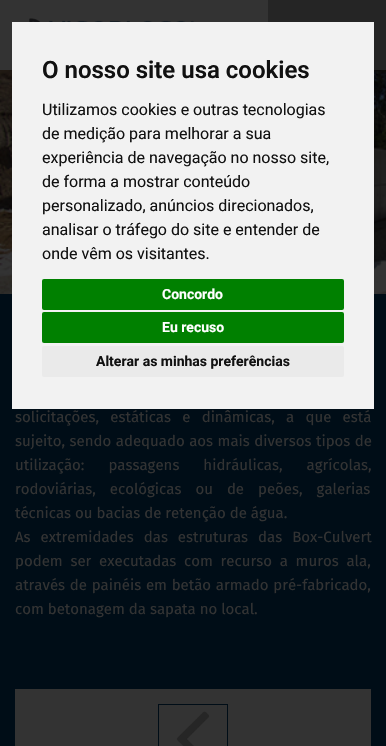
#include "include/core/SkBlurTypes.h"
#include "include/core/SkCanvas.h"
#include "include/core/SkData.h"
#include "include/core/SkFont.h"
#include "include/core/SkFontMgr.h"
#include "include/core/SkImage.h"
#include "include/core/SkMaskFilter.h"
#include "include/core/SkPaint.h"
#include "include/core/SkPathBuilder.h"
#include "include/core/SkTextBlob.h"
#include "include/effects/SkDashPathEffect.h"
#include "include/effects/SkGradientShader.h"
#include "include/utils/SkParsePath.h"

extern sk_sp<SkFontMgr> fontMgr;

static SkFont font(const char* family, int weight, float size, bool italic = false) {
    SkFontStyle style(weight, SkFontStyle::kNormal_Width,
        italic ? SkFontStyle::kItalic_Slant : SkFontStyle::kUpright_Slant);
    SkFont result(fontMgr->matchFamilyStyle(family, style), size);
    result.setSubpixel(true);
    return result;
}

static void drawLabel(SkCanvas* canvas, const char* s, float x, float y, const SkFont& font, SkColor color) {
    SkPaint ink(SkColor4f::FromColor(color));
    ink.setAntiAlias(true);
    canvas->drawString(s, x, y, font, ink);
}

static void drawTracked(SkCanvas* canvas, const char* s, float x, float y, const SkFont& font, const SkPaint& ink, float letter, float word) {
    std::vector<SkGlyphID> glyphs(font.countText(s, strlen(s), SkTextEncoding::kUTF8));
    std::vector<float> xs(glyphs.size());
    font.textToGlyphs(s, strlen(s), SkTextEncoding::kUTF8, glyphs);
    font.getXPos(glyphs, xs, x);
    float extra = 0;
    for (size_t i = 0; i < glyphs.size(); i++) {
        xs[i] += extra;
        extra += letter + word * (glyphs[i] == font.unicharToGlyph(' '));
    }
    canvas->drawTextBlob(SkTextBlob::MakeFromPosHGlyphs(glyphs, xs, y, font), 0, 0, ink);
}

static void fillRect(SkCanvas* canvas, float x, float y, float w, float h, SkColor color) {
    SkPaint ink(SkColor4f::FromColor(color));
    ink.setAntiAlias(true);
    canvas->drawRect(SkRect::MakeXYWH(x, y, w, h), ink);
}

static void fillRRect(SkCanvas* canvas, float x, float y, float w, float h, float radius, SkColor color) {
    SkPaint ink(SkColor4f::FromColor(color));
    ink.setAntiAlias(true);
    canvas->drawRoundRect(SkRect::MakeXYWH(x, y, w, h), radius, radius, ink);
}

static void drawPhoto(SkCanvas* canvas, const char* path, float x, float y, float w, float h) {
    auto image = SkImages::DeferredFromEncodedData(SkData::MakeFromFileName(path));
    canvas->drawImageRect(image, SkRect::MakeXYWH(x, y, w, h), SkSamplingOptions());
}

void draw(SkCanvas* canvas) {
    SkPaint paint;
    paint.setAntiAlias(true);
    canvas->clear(0xFF333333);
    fillRect(canvas, 330, 0, 56, 70, 0xFF252525);
    drawPhoto(canvas, "assets/img2.png", 0, 70, 386, 224);
    fillRect(canvas, 0, 294, 386, 452, 0xFF000D17);
    fillRect(canvas, 12, 22, 362, 387, 0xFFF2F2F2);
    SkFont font1 = font("Roboto", 600, 24);
    drawLabel(canvas, "O nosso site usa cookies", 42, 78, font1, 0xFF111111);
    SkFont font2 = font("Roboto", 400, 16);
    drawLabel(canvas, "Utilizamos cookies e outras tecnologias", 42, 115, font2, 0xFF111111);
    drawLabel(canvas, "de medição para melhorar a sua", 42, 139, font2, 0xFF111111);
    drawLabel(canvas, "experiência de navegação no nosso site,", 42, 163, font2, 0xFF111111);
    drawLabel(canvas, "de forma a mostrar conteúdo", 42, 187, font2, 0xFF111111);
    drawLabel(canvas, "personalizado, anúncios direcionados,", 42, 211, font2, 0xFF111111);
    drawLabel(canvas, "analisar o tráfego do site e entender de", 42, 235, font2, 0xFF111111);
    drawLabel(canvas, "onde vêm os visitantes.", 42, 259, font2, 0xFF111111);
    fillRRect(canvas, 42, 279, 302, 31, 2, 0xFF008000);
    SkFont font3 = font("Roboto", 700, 14);
    drawLabel(canvas, "Concordo", 162, 299, font3, 0xFFFFFFFF);
    fillRRect(canvas, 42, 312, 302, 31, 2, 0xFF008000);
    drawLabel(canvas, "Eu recuso", 162, 332, font3, 0xFFFFFFFF);
    fillRRect(canvas, 42, 346, 302, 31, 2, 0xFFEAEAEA);
    drawLabel(canvas, "Alterar as minhas preferências", 96, 366, font3, 0xFF111111);
    drawPhoto(canvas, "assets/img1.png", 29, 18, 165, 4);
    fillRect(canvas, 268, 0, 62, 22, 0xFF252525);
    SkFont font4 = font("Fira Sans", 400, 15);
    paint.setColor(0xFF333333);
    drawTracked(canvas, "solicitações, estáticas e dinâmicas, a que está", 15, 422, font4, paint, 0, 7.25f);
    drawTracked(canvas, "sujeito, sendo adequado aos mais diversos tipos de", 15, 446, font4, paint, 0, 0.5f);
    drawTracked(canvas, "utilização: passagens hidráulicas, agrícolas,", 15, 470, font4, paint, 0, 20);
    drawTracked(canvas, "rodoviárias, ecológicas ou de peões, galerias", 15, 494, font4, paint, 0, 10);
    drawLabel(canvas, "técnicas ou bacias de retenção de água.", 15, 518, font4, 0xFF333333);
    drawTracked(canvas, "As extremidades das estruturas das Box-Culvert", 15, 542, font4, paint, 0, 6);
    drawTracked(canvas, "podem ser executadas com recurso a muros ala,", 15, 566, font4, paint, 0, 3.75f);
    drawTracked(canvas, "através de painéis em betão armado pré-fabricado,", 15, 590, font4, paint, 0, 0.75f);
    drawLabel(canvas, "com betonagem da sapata no local.", 15, 614, font4, 0xFF333333);
    fillRect(canvas, 15, 689, 356, 57, 0xFF333333);
    paint.setStroke(true);
    paint.setStrokeWidth(1);
    paint.setColor(0xFF000D17);
    canvas->drawRect(SkRect::MakeXYWH(158.5f, 704.5f, 69, 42), paint);
    drawPhoto(canvas, "assets/img3.png", 176, 711, 34, 35);
}
